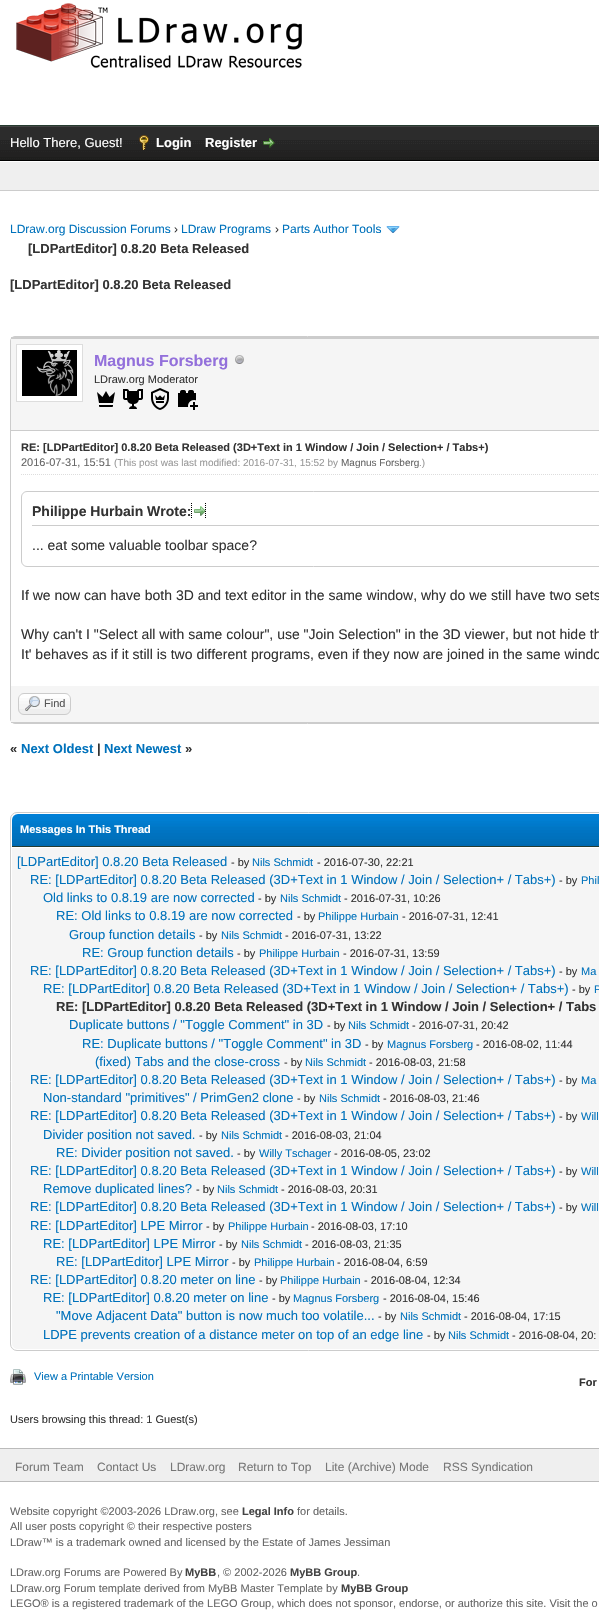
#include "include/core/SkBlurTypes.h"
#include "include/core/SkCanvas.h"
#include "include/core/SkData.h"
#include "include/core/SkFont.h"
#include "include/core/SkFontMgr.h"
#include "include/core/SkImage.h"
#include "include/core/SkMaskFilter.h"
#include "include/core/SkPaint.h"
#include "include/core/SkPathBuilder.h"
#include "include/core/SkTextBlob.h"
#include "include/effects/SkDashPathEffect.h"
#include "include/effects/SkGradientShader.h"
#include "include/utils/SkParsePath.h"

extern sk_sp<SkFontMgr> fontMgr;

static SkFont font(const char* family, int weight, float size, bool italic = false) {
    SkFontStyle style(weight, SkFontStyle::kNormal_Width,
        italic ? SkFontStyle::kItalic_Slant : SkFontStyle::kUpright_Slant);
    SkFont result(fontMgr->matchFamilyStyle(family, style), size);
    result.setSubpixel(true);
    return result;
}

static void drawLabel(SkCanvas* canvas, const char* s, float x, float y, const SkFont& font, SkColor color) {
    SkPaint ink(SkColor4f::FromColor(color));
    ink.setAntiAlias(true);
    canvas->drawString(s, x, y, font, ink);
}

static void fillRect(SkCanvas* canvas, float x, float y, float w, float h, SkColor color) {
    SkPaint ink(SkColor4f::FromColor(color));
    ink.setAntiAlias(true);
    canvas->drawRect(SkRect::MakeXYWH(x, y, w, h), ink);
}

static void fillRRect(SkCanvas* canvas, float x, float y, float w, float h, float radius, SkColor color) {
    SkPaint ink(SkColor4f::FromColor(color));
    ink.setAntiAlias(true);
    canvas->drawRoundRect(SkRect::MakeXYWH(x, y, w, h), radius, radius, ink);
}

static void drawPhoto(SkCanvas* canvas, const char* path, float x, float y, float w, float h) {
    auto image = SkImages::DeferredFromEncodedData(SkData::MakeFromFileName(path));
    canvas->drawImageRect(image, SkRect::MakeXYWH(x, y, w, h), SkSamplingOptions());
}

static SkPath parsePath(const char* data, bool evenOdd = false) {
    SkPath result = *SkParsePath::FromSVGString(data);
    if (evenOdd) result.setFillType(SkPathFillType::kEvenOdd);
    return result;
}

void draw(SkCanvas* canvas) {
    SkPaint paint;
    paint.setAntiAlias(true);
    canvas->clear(0xFFFFFFFF);
    fillRect(canvas, 0, 125, 599, 1, 0xFF263C30);
    drawPhoto(canvas, "assets/img1.png", 16, 3, 286, 65);
    drawPhoto(canvas, "assets/img2.png", 0, 127, 599, 33);
    fillRect(canvas, 0, 126, 599, 1, 0xFF444444);
    fillRect(canvas, 0, 160, 599, 1, 0xFF000000);
    SkFont font1 = font("Liberation Sans", 400, 13);
    drawLabel(canvas, "Hello There, Guest!", 10, 147, font1, 0xFFFFFFFF);
    drawPhoto(canvas, "assets/img3.png", 139, 135, 10, 15);
    SkFont font2 = font("Liberation Sans", 700, 13);
    drawLabel(canvas, "Login", 156, 147, font2, 0xFFFFFFFF);
    drawLabel(canvas, "Register", 205, 147, font2, 0xFFFFFFFF);
    drawPhoto(canvas, "assets/img4.png", 263, 138, 12, 10);
    fillRect(canvas, 0, 162, 599, 28, 0xFFEFEFEF);
    fillRect(canvas, 0, 190, 599, 1, 0xFFCCCCCC);
    SkFont font3 = font("Liberation Sans", 400, 12);
    drawLabel(canvas, "LDraw.org Discussion Forums", 10, 233, font3, 0xFF0072BC);
    drawLabel(canvas, "›", 174, 233, font3, 0xFF333333);
    drawLabel(canvas, "LDraw Programs", 181, 233, font3, 0xFF0072BC);
    drawLabel(canvas, "›", 275, 233, font3, 0xFF333333);
    drawLabel(canvas, "Parts Author Tools", 282, 233, font3, 0xFF0072BC);
    drawPhoto(canvas, "assets/img5.png", 386, 226, 14, 7);
    drawLabel(canvas, "[LDPartEditor] 0.8.20 Beta Released", 28, 253, font2, 0xFF333333);
    drawLabel(canvas, "[LDPartEditor] 0.8.20 Beta Released", 10, 289, font2, 0xFF333333);
    paint.setStroke(true);
    paint.setStrokeWidth(1);
    paint.setColor(0xFFCCCCCC);
    canvas->drawRoundRect(SkRect::MakeXYWH(10.5f, 336.5f, 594, 387), 4.5f, 4.5f, paint);
    fillRect(canvas, 11, 339, 588, 91, 0xFFF5F5F5);
    fillRect(canvas, 11, 337, 588, 2, 0xFFCCCCCC);
    fillRect(canvas, 11, 430, 588, 1, 0xFFCCCCCC);
    paint.setStroke(false);
    paint.setColor(0xFFFFFFFF);
    canvas->drawRect(SkRect::MakeXYWH(16.5f, 344.5f, 66, 57), paint);
    paint.setStroke(true);
    paint.setColor(0xFFDDDDDD);
    canvas->drawRect(SkRect::MakeXYWH(16.5f, 344.5f, 66, 57), paint);
    drawPhoto(canvas, "assets/img6.png", 22, 350, 55, 46);
    SkFont font4 = font("Liberation Sans", 700, 16);
    drawLabel(canvas, "Magnus Forsberg", 94, 366, font4, 0xFF9370DB);
    drawPhoto(canvas, "assets/img7.png", 235, 355, 9, 9);
    SkFont font5 = font("Liberation Sans", 400, 11);
    drawLabel(canvas, "LDraw.org Moderator", 94, 383, font5, 0xFF333333);
    drawPhoto(canvas, "assets/img8.png", 97, 391, 18, 16);
    drawPhoto(canvas, "assets/img9.png", 123, 389, 20, 20);
    drawPhoto(canvas, "assets/img10.png", 151, 388, 18, 22);
    drawPhoto(canvas, "assets/img11.png", 178, 390, 20, 20);
    paint.setPathEffect(SkDashPathEffect::Make({{1, 1}}, 0));
    canvas->drawPath(parsePath("M21 474.5H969"), paint);
    paint.setPathEffect(nullptr);
    SkFont font6 = font("Liberation Sans", 700, 11);
    drawLabel(canvas, "RE: [LDPartEditor] 0.8.20 Beta Released (3D+Text in 1 Window / Join / Selection+ / Tabs+)", 21, 451, font6, 0xFF333333);
    drawLabel(canvas, "2016-07-31, 15:51", 21, 466, font5, 0xFF666666);
    SkFont font7 = font("Liberation Sans", 400, 10);
    drawLabel(canvas, "(This post was last modified: 2016-07-31, 15:52 by", 114, 466, font7, 0xFF999999);
    drawLabel(canvas, "Magnus Forsberg", 341, 466, font7, 0xFF666666);
    drawLabel(canvas, ".)", 419, 466, font7, 0xFF999999);
    paint.setColor(0xFFCCCCCC);
    canvas->drawRoundRect(SkRect::MakeXYWH(21.5f, 491.5f, 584, 75), 5.5f, 5.5f, paint);
    fillRect(canvas, 32, 525, 567, 1, 0xFFCCCCCC);
    SkFont font8 = font("Liberation Sans", 700, 14);
    drawLabel(canvas, "Philippe Hurbain Wrote:", 32, 516, font8, 0xFF333333);
    drawPhoto(canvas, "assets/img12.png", 194, 506, 12, 10);
    paint.setColor(0xFF000000);
    paint.setPathEffect(SkDashPathEffect::Make({{1, 1}}, 0));
    canvas->drawPath(parsePath("M205.5 503V519M191.5 503V519"), paint);
    paint.setPathEffect(nullptr);
    SkFont font9 = font("Liberation Sans", 400, 14);
    drawLabel(canvas, "... eat some valuable toolbar space?", 32, 550, font9, 0xFF333333);
    drawLabel(canvas, "If we now can have both 3D and text editor in the same window, why do we still have two sets", 21, 600, font9, 0xFF333333);
    drawLabel(canvas, "Why can't I \"Select all with same colour\", use \"Join Selection\" in the 3D viewer, but not hide th", 21, 639, font9, 0xFF333333);
    drawLabel(canvas, "It' behaves as if it still is two different programs, even if they now are joined in the same windo", 21, 659, font9, 0xFF333333);
    fillRect(canvas, 11, 686, 588, 36, 0xFFF5F5F5);
    fillRect(canvas, 11, 722, 588, 1, 0xFFCCCCCC);
    fillRRect(canvas, 18, 693, 53, 22, 6, 0xFFEEEEEE);
    drawPhoto(canvas, "assets/img13.png", 18, 694, 53, 15);
    paint.setColor(0xFFCCCCCC);
    canvas->drawRoundRect(SkRect::MakeXYWH(18.5f, 693.5f, 52, 21), 5.5f, 5.5f, paint);
    drawPhoto(canvas, "assets/img14.png", 25, 696, 15, 15);
    drawLabel(canvas, "Find", 44, 707, font5, 0xFF555555);
    drawLabel(canvas, "«", 10, 753, font2, 0xFF333333);
    drawLabel(canvas, "Next Oldest", 21, 753, font2, 0xFF0072BC);
    drawLabel(canvas, "|", 97, 753, font2, 0xFF333333);
    drawLabel(canvas, "Next Newest", 104, 753, font2, 0xFF0072BC);
    drawLabel(canvas, "»", 185, 753, font2, 0xFF333333);
    canvas->drawRoundRect(SkRect::MakeXYWH(10.5f, 812.5f, 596, 538), 6.5f, 6.5f, paint);
    drawPhoto(canvas, "assets/img15.png", 12, 814, 587, 32);
    fillRect(canvas, 12, 846, 587, 1, 0xFF263C30);
    drawLabel(canvas, "Messages In This Thread", 20, 833, font6, 0xFFFFFFFF);
    paint.setStroke(false);
    paint.setColor(0xFFF5F5F5);
    canvas->drawPath(parsePath("M12 847H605V1343C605 1346.5 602.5 1349 599 1349H18C14.5 1349 12 1346.5 12 1343Z"), paint);
    fillRect(canvas, 12, 847, 587, 1, 0xFFFFFFFF);
    drawLabel(canvas, "[LDPartEditor] 0.8.20 Beta Released", 17, 866, font1, 0xFF0072BC);
    drawLabel(canvas, "- by", 231, 866, font5, 0xFF333333);
    drawLabel(canvas, "Nils Schmidt", 252, 866, font5, 0xFF0072BC);
    drawLabel(canvas, "- 2016-07-30, 22:21", 317, 866, font5, 0xFF333333);
    drawLabel(canvas, "RE: [LDPartEditor] 0.8.20 Beta Released (3D+Text in 1 Window / Join / Selection+ / Tabs+)", 30, 884, font1, 0xFF0072BC);
    drawLabel(canvas, "- by", 559, 884, font5, 0xFF333333);
    drawLabel(canvas, "Phil", 581, 884, font5, 0xFF0072BC);
    drawLabel(canvas, "Old links to 0.8.19 are now corrected", 43, 902, font1, 0xFF0072BC);
    drawLabel(canvas, "- by", 258, 902, font5, 0xFF333333);
    drawLabel(canvas, "Nils Schmidt", 280, 902, font5, 0xFF0072BC);
    drawLabel(canvas, "- 2016-07-31, 10:26", 344, 902, font5, 0xFF333333);
    drawLabel(canvas, "RE: Old links to 0.8.19 are now corrected", 56, 920, font1, 0xFF0072BC);
    drawLabel(canvas, "- by", 297, 920, font5, 0xFF333333);
    drawLabel(canvas, "Philippe Hurbain", 318, 920, font5, 0xFF0072BC);
    drawLabel(canvas, "- 2016-07-31, 12:41", 402, 920, font5, 0xFF333333);
    drawLabel(canvas, "Group function details", 69, 939, font1, 0xFF0072BC);
    drawLabel(canvas, "- by", 199, 939, font5, 0xFF333333);
    drawLabel(canvas, "Nils Schmidt", 221, 939, font5, 0xFF0072BC);
    drawLabel(canvas, "- 2016-07-31, 13:22", 285, 939, font5, 0xFF333333);
    drawLabel(canvas, "RE: Group function details", 82, 957, font1, 0xFF0072BC);
    drawLabel(canvas, "- by", 237, 957, font5, 0xFF333333);
    drawLabel(canvas, "Philippe Hurbain", 259, 957, font5, 0xFF0072BC);
    drawLabel(canvas, "- 2016-07-31, 13:59", 343, 957, font5, 0xFF333333);
    drawLabel(canvas, "RE: [LDPartEditor] 0.8.20 Beta Released (3D+Text in 1 Window / Join / Selection+ / Tabs+)", 30, 975, font1, 0xFF0072BC);
    drawLabel(canvas, "- by", 559, 975, font5, 0xFF333333);
    drawLabel(canvas, "Ma", 581, 975, font5, 0xFF0072BC);
    drawLabel(canvas, "RE: [LDPartEditor] 0.8.20 Beta Released (3D+Text in 1 Window / Join / Selection+ / Tabs+)", 43, 993, font1, 0xFF0072BC);
    drawLabel(canvas, "- by", 572, 993, font5, 0xFF333333);
    drawLabel(canvas, "P", 594, 993, font5, 0xFF0072BC);
    drawLabel(canvas, "RE: [LDPartEditor] 0.8.20 Beta Released (3D+Text in 1 Window / Join / Selection+ / Tabs", 56, 1011, font2, 0xFF333333);
    drawLabel(canvas, "Duplicate buttons / \"Toggle Comment\" in 3D", 69, 1029, font1, 0xFF0072BC);
    drawLabel(canvas, "- by", 327, 1029, font5, 0xFF333333);
    drawLabel(canvas, "Nils Schmidt", 348, 1029, font5, 0xFF0072BC);
    drawLabel(canvas, "- 2016-07-31, 20:42", 412, 1029, font5, 0xFF333333);
    drawLabel(canvas, "RE: Duplicate buttons / \"Toggle Comment\" in 3D", 82, 1048, font1, 0xFF0072BC);
    drawLabel(canvas, "- by", 365, 1048, font5, 0xFF333333);
    drawLabel(canvas, "Magnus Forsberg", 387, 1048, font5, 0xFF0072BC);
    drawLabel(canvas, "- 2016-08-02, 11:44", 476, 1048, font5, 0xFF333333);
    drawLabel(canvas, "(fixed) Tabs and the close-cross", 95, 1066, font1, 0xFF0072BC);
    drawLabel(canvas, "- by", 284, 1066, font5, 0xFF333333);
    drawLabel(canvas, "Nils Schmidt", 305, 1066, font5, 0xFF0072BC);
    drawLabel(canvas, "- 2016-08-03, 21:58", 369, 1066, font5, 0xFF333333);
    drawLabel(canvas, "RE: [LDPartEditor] 0.8.20 Beta Released (3D+Text in 1 Window / Join / Selection+ / Tabs+)", 30, 1084, font1, 0xFF0072BC);
    drawLabel(canvas, "- by", 559, 1084, font5, 0xFF333333);
    drawLabel(canvas, "Ma", 581, 1084, font5, 0xFF0072BC);
    drawLabel(canvas, "Non-standard \"primitives\" / PrimGen2 clone", 43, 1102, font1, 0xFF0072BC);
    drawLabel(canvas, "- by", 297, 1102, font5, 0xFF333333);
    drawLabel(canvas, "Nils Schmidt", 319, 1102, font5, 0xFF0072BC);
    drawLabel(canvas, "- 2016-08-03, 21:46", 383, 1102, font5, 0xFF333333);
    drawLabel(canvas, "RE: [LDPartEditor] 0.8.20 Beta Released (3D+Text in 1 Window / Join / Selection+ / Tabs+)", 30, 1120, font1, 0xFF0072BC);
    drawLabel(canvas, "- by", 559, 1120, font5, 0xFF333333);
    drawLabel(canvas, "Will", 581, 1120, font5, 0xFF0072BC);
    drawLabel(canvas, "Divider position not saved.", 43, 1139, font1, 0xFF0072BC);
    drawLabel(canvas, "- by", 199, 1139, font5, 0xFF333333);
    drawLabel(canvas, "Nils Schmidt", 221, 1139, font5, 0xFF0072BC);
    drawLabel(canvas, "- 2016-08-03, 21:04", 285, 1139, font5, 0xFF333333);
    drawLabel(canvas, "RE: Divider position not saved.", 56, 1157, font1, 0xFF0072BC);
    drawLabel(canvas, "- by", 237, 1157, font5, 0xFF333333);
    drawLabel(canvas, "Willy Tschager", 259, 1157, font5, 0xFF0072BC);
    drawLabel(canvas, "- 2016-08-05, 23:02", 334, 1157, font5, 0xFF333333);
    drawLabel(canvas, "RE: [LDPartEditor] 0.8.20 Beta Released (3D+Text in 1 Window / Join / Selection+ / Tabs+)", 30, 1175, font1, 0xFF0072BC);
    drawLabel(canvas, "- by", 559, 1175, font5, 0xFF333333);
    drawLabel(canvas, "Will", 581, 1175, font5, 0xFF0072BC);
    drawLabel(canvas, "Remove duplicated lines?", 43, 1193, font1, 0xFF0072BC);
    drawLabel(canvas, "- by", 196, 1193, font5, 0xFF333333);
    drawLabel(canvas, "Nils Schmidt", 217, 1193, font5, 0xFF0072BC);
    drawLabel(canvas, "- 2016-08-03, 20:31", 281, 1193, font5, 0xFF333333);
    drawLabel(canvas, "RE: [LDPartEditor] 0.8.20 Beta Released (3D+Text in 1 Window / Join / Selection+ / Tabs+)", 30, 1211, font1, 0xFF0072BC);
    drawLabel(canvas, "- by", 559, 1211, font5, 0xFF333333);
    drawLabel(canvas, "Will", 581, 1211, font5, 0xFF0072BC);
    drawLabel(canvas, "RE: [LDPartEditor] LPE Mirror", 30, 1230, font1, 0xFF0072BC);
    drawLabel(canvas, "- by", 206, 1230, font5, 0xFF333333);
    drawLabel(canvas, "Philippe Hurbain", 228, 1230, font5, 0xFF0072BC);
    drawLabel(canvas, "- 2016-08-03, 17:10", 311, 1230, font5, 0xFF333333);
    drawLabel(canvas, "RE: [LDPartEditor] LPE Mirror", 43, 1248, font1, 0xFF0072BC);
    drawLabel(canvas, "- by", 219, 1248, font5, 0xFF333333);
    drawLabel(canvas, "Nils Schmidt", 241, 1248, font5, 0xFF0072BC);
    drawLabel(canvas, "- 2016-08-03, 21:35", 305, 1248, font5, 0xFF333333);
    drawLabel(canvas, "RE: [LDPartEditor] LPE Mirror", 56, 1266, font1, 0xFF0072BC);
    drawLabel(canvas, "- by", 232, 1266, font5, 0xFF333333);
    drawLabel(canvas, "Philippe Hurbain", 254, 1266, font5, 0xFF0072BC);
    drawLabel(canvas, "- 2016-08-04, 6:59", 337, 1266, font5, 0xFF333333);
    drawLabel(canvas, "RE: [LDPartEditor] 0.8.20 meter on line", 30, 1284, font1, 0xFF0072BC);
    drawLabel(canvas, "- by", 259, 1284, font5, 0xFF333333);
    drawLabel(canvas, "Philippe Hurbain", 280, 1284, font5, 0xFF0072BC);
    drawLabel(canvas, "- 2016-08-04, 12:34", 364, 1284, font5, 0xFF333333);
    drawLabel(canvas, "RE: [LDPartEditor] 0.8.20 meter on line", 43, 1302, font1, 0xFF0072BC);
    drawLabel(canvas, "- by", 272, 1302, font5, 0xFF333333);
    drawLabel(canvas, "Magnus Forsberg", 293, 1302, font5, 0xFF0072BC);
    drawLabel(canvas, "- 2016-08-04, 15:46", 383, 1302, font5, 0xFF333333);
    drawLabel(canvas, "\"Move Adjacent Data\" button is now much too volatile...", 56, 1320, font1, 0xFF0072BC);
    drawLabel(canvas, "- by", 378, 1320, font5, 0xFF333333);
    drawLabel(canvas, "Nils Schmidt", 400, 1320, font5, 0xFF0072BC);
    drawLabel(canvas, "- 2016-08-04, 17:15", 464, 1320, font5, 0xFF333333);
    drawLabel(canvas, "LDPE prevents creation of a distance meter on top of an edge line", 43, 1339, font1, 0xFF0072BC);
    drawLabel(canvas, "- by", 427, 1339, font5, 0xFF333333);
    drawLabel(canvas, "Nils Schmidt", 448, 1339, font5, 0xFF0072BC);
    drawLabel(canvas, "- 2016-08-04, 20:", 512, 1339, font5, 0xFF333333);
    drawPhoto(canvas, "assets/img16.png", 10, 1369, 16, 16);
    drawLabel(canvas, "View a Printable Version", 34, 1380, font5, 0xFF0072BC);
    drawLabel(canvas, "For", 579, 1386, font6, 0xFF333333);
    drawLabel(canvas, "Users browsing this thread: 1 Guest(s)", 10, 1423, font5, 0xFF333333);
    fillRect(canvas, 0, 1449, 599, 32, 0xFFEFEFEF);
    fillRect(canvas, 0, 1448, 599, 1, 0xFFBBBBBB);
    fillRect(canvas, 0, 1481, 599, 1, 0xFFBBBBBB);
    drawLabel(canvas, "Forum Team", 15, 1471, font3, 0xFF777777);
    drawLabel(canvas, "Contact Us", 97, 1471, font3, 0xFF777777);
    drawLabel(canvas, "LDraw.org", 170, 1471, font3, 0xFF777777);
    drawLabel(canvas, "Return to Top", 238, 1471, font3, 0xFF777777);
    drawLabel(canvas, "Lite (Archive) Mode", 325, 1471, font3, 0xFF777777);
    drawLabel(canvas, "RSS Syndication", 443, 1471, font3, 0xFF777777);
    drawLabel(canvas, "Website copyright ©2003-2026 LDraw.org, see", 10, 1515, font5, 0xFF666666);
    drawLabel(canvas, "Legal Info", 242, 1515, font6, 0xFF444444);
    drawLabel(canvas, "for details.", 297, 1515, font5, 0xFF666666);
    drawLabel(canvas, "All user posts copyright © their respective posters", 10, 1530, font5, 0xFF666666);
    drawLabel(canvas, "LDraw™ is a trademark owned and licensed by the Estate of James Jessiman", 10, 1546, font5, 0xFF666666);
    drawLabel(canvas, "LDraw.org Forums are Powered By", 10, 1576, font5, 0xFF666666);
    drawLabel(canvas, "MyBB", 185, 1576, font6, 0xFF444444);
    drawLabel(canvas, ", © 2002-2026", 217, 1576, font5, 0xFF666666);
    drawLabel(canvas, "MyBB Group", 290, 1576, font6, 0xFF444444);
    drawLabel(canvas, ".", 357, 1576, font5, 0xFF666666);
    drawLabel(canvas, "LDraw.org Forum template derived from MyBB Master Template by", 10, 1592, font5, 0xFF666666);
    drawLabel(canvas, "MyBB Group", 341, 1592, font6, 0xFF444444);
    drawLabel(canvas, "LEGO® is a registered trademark of the LEGO Group, which does not sponsor, endorse, or authorize this site. Visit the o", 10, 1607, font5, 0xFF666666);
}
